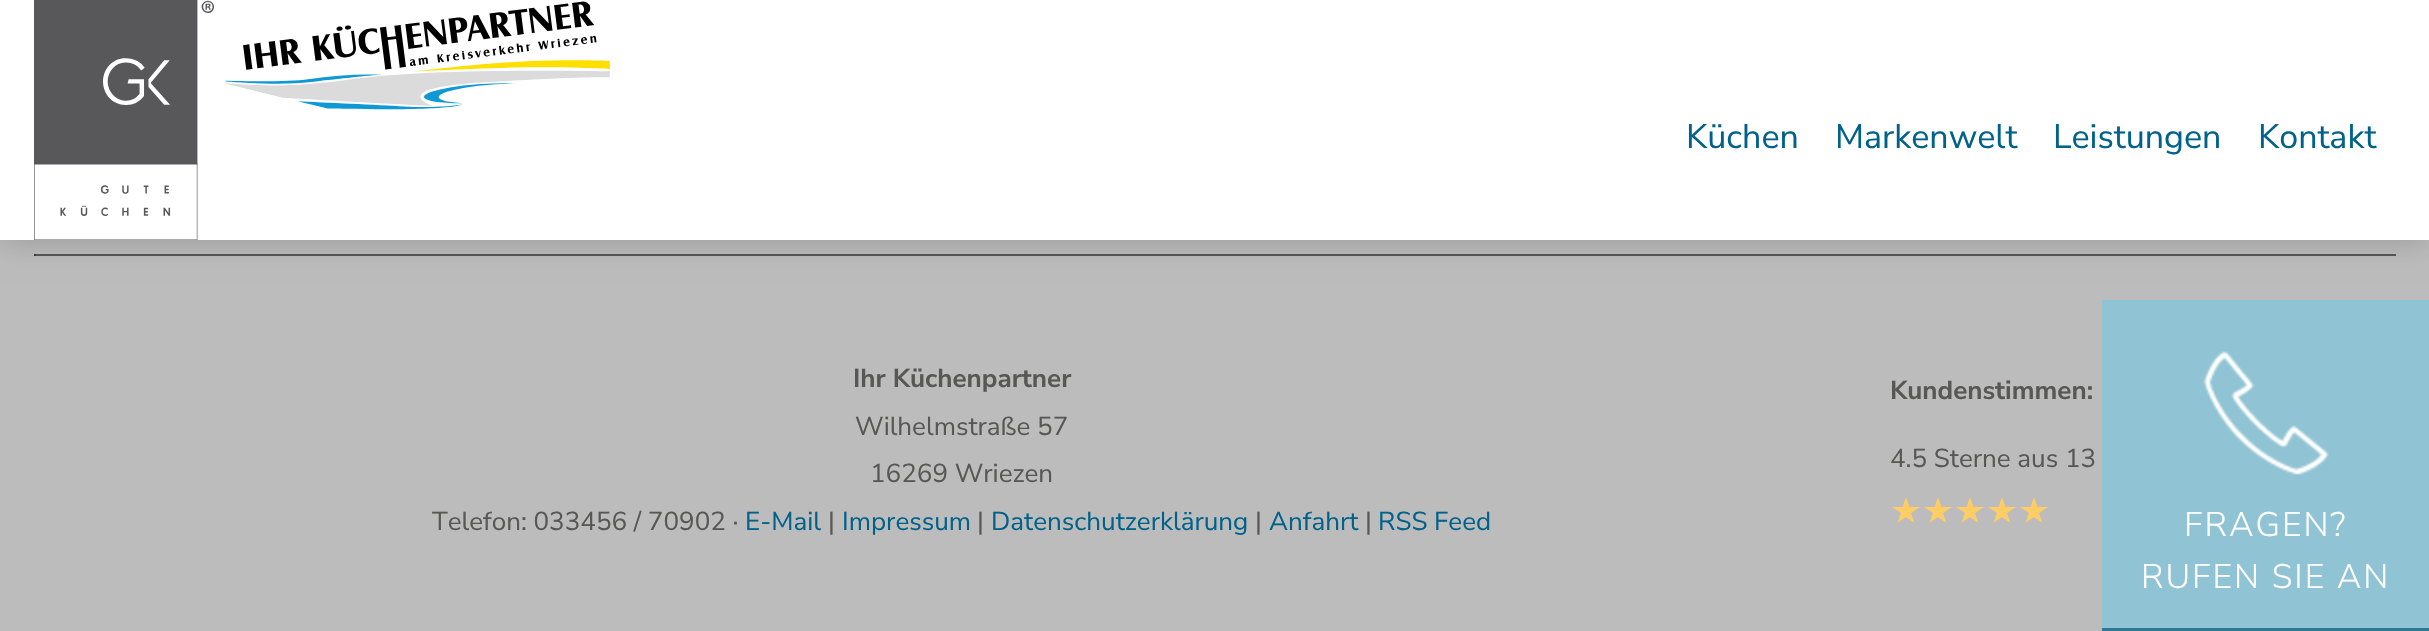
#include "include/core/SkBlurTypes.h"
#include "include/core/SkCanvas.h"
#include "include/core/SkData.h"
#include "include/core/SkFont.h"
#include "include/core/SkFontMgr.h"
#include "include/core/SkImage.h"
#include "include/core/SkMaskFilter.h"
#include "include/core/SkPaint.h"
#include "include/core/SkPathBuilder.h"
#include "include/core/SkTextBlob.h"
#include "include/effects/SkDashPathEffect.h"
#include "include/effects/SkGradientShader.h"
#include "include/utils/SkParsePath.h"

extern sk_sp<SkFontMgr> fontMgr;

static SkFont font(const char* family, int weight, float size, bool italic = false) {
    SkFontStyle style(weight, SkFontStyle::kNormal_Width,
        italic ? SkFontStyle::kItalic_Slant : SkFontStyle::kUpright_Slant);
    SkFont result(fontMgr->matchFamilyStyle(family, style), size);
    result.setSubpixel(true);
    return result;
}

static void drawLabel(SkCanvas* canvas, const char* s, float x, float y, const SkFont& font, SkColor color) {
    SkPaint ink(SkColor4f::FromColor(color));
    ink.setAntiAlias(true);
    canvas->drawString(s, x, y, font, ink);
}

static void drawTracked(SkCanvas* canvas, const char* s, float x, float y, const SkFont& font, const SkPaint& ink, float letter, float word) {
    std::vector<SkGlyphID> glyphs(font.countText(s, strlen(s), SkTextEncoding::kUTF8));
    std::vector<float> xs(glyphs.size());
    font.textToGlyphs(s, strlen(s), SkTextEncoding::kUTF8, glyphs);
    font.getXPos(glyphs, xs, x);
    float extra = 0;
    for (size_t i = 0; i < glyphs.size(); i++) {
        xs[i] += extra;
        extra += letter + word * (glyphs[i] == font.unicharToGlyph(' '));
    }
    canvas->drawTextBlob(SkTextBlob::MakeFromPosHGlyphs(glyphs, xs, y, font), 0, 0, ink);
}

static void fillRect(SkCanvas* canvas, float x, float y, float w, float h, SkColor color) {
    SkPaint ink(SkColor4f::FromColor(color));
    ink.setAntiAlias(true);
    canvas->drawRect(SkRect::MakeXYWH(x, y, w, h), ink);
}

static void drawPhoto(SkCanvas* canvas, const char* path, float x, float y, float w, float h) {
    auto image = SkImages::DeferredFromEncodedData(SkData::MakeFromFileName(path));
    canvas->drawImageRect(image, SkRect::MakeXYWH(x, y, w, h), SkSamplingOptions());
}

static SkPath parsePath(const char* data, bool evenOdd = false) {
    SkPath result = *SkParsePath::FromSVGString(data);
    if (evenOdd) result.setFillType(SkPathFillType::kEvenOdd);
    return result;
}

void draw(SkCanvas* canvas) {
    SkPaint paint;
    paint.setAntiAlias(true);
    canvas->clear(0xFFBCBCBC);
    fillRect(canvas, 34, 254, 2362, 2, 0xFF575756);
    fillRect(canvas, 34, 254, 2, 2, 0xFF3A3A39);
    paint.setColor(0x33000000);
    paint.setMaskFilter(SkMaskFilter::MakeBlur(kNormal_SkBlurStyle, 15));
    canvas->drawRect(SkRect::MakeXYWH(0, 0, 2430, 240), paint);
    paint.setMaskFilter(nullptr);
    fillRect(canvas, 0, 0, 2429, 240, 0xFFFFFFFF);
    drawPhoto(canvas, "assets/img1.png", 34, 0, 576, 240);
    SkFont font1 = font("Nunito Sans", 400, 34);
    drawLabel(canvas, "Küchen", 1686, 148, font1, 0xFF00628A);
    drawLabel(canvas, "Markenwelt", 1835, 148, font1, 0xFF00628A);
    drawLabel(canvas, "Leistungen", 2053, 148, font1, 0xFF00628A);
    drawLabel(canvas, "Kontakt", 2258, 148, font1, 0xFF00628A);
    SkFont font2 = font("Nunito Sans", 700, 26);
    drawLabel(canvas, "Ihr Küchenpartner", 853, 387, font2, 0xFF575756);
    SkFont font3 = font("Nunito Sans", 400, 26);
    drawLabel(canvas, "Wilhelmstraße 57", 855, 435, font3, 0xFF575756);
    drawLabel(canvas, "16269 Wriezen", 870, 482, font3, 0xFF575756);
    drawLabel(canvas, "Telefon: 033456 / 70902 ·", 432, 530, font3, 0xFF575756);
    drawLabel(canvas, "E-Mail", 745, 530, font3, 0xFF00628A);
    drawLabel(canvas, "|", 828, 530, font3, 0xFF575756);
    drawLabel(canvas, "Impressum", 842, 530, font3, 0xFF00628A);
    drawLabel(canvas, "|", 977, 530, font3, 0xFF575756);
    drawLabel(canvas, "Datenschutzerklärung", 991, 530, font3, 0xFF00628A);
    drawLabel(canvas, "|", 1255, 530, font3, 0xFF575756);
    drawLabel(canvas, "Anfahrt", 1269, 530, font3, 0xFF00628A);
    drawLabel(canvas, "|", 1365, 530, font3, 0xFF575756);
    drawLabel(canvas, "RSS Feed", 1378, 530, font3, 0xFF00628A);
    drawLabel(canvas, "Kundenstimmen:", 1890, 399, font2, 0xFF575756);
    drawLabel(canvas, "4.5 Sterne aus 13", 1890, 467, font3, 0xFF575756);
    paint.setColor(0xFFFFCC66);
    canvas->drawPath(parsePath("M1920 507H1909.5L1906 497L1902.5 507H1892L1901 513L1897.5 523L1906 517L1914.5 523L1911 513ZM1952 507H1941.5L1938 497L1934.5 507H1924L1933 513L1929.5 523L1938 517L1946.5 523L1943 513Z"), paint);
    canvas->drawPath(parsePath("M1984 507H1973.5L1970 497L1966.5 507H1956L1965 513L1961.5 523L1970 517L1978.5 523L1975 513ZM2016 507H2005.5L2002 497L1998.5 507H1988L1997 513L1993.5 523L2002 517L2010.5 523L2007 513Z"), paint);
    canvas->drawPath(parsePath("M2048 507H2037.5L2034 497L2030.5 507H2020L2029 513L2025.5 523L2034 517L2042.5 523L2039 513Z"), paint);
    fillRect(canvas, 2102, 300, 327, 328, 0xBF81C7DC);
    drawPhoto(canvas, "assets/img2.png", 2203, 351, 126, 124);
    SkFont font4 = font("Nunito Sans", 300, 34);
    paint.setColor(0xFFFFFFFF);
    drawTracked(canvas, "FRAGEN?", 2184, 536, font4, paint, 2, 0);
    drawTracked(canvas, "RUFEN SIE AN", 2141, 588, font4, paint, 2, 0);
    fillRect(canvas, 2102, 628, 327, 3, 0xFF2F7997);
}
